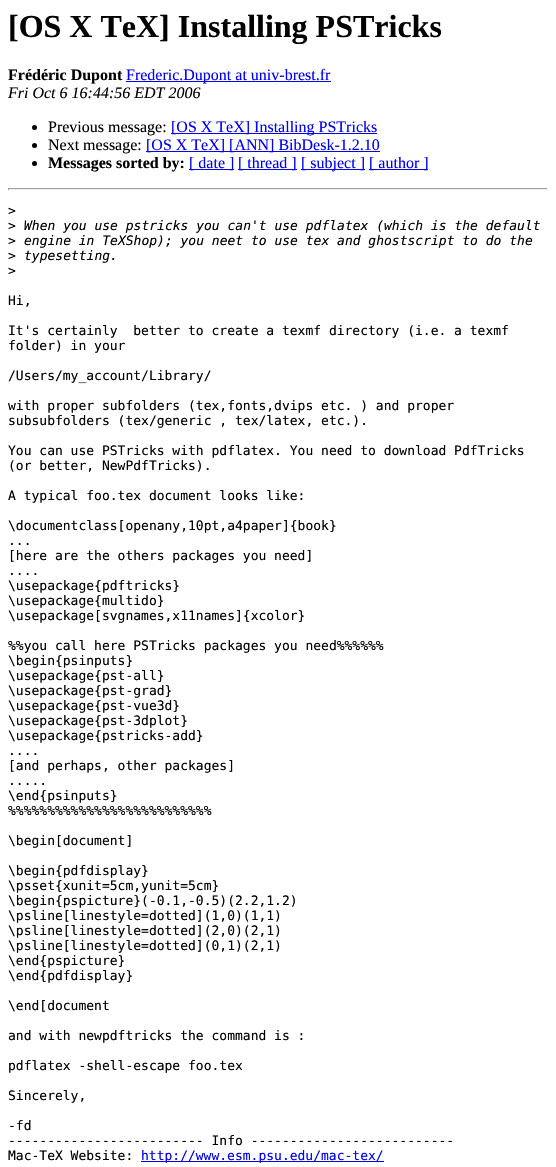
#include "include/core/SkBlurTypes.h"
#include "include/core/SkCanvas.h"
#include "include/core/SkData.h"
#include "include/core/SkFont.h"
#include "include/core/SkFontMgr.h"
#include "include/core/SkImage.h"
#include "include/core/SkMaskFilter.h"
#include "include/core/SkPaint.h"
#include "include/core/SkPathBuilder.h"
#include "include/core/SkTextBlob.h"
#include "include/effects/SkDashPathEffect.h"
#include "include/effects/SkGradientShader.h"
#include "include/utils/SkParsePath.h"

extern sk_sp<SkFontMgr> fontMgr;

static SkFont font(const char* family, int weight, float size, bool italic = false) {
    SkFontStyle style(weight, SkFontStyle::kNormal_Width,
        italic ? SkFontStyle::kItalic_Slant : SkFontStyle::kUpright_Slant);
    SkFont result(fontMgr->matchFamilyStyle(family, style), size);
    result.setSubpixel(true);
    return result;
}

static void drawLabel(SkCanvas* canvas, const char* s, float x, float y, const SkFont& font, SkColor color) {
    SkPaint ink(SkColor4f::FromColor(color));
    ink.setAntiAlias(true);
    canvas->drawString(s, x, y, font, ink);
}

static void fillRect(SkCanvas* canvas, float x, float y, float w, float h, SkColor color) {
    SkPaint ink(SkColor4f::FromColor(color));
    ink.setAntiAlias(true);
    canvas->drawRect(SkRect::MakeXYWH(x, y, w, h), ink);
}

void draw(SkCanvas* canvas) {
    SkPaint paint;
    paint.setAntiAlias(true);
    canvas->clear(0xFFFFFFFF);
    SkFont font1 = font("Liberation Serif", 700, 32);
    drawLabel(canvas, "[OS X TeX] Installing PSTricks", 8, 37, font1, 0xFF000000);
    SkFont font2 = font("Liberation Serif", 700, 16);
    drawLabel(canvas, "Frédéric Dupont", 8, 80, font2, 0xFF000000);
    fillRect(canvas, 126, 81, 205, 1, 0xFF0000EE);
    SkFont font3 = font("Liberation Serif", 400, 16);
    drawLabel(canvas, "Frederic.Dupont at univ-brest.fr", 126, 80, font3, 0xFF0000EE);
    SkFont font4 = font("Liberation Serif", 400, 16, true);
    drawLabel(canvas, "Fri Oct 6 16:44:56 EDT 2006", 8, 98, font4, 0xFF000000);
    paint.setColor(0xFF000000);
    canvas->drawCircle(34.5f, 127.5f, 2.5f, paint);
    drawLabel(canvas, "Previous message:", 48, 132, font3, 0xFF000000);
    fillRect(canvas, 171, 133, 206, 1, 0xFF0000EE);
    drawLabel(canvas, "[OS X TeX] Installing PSTricks", 171, 132, font3, 0xFF0000EE);
    canvas->drawCircle(34.5f, 145.5f, 2.5f, paint);
    drawLabel(canvas, "Next message:", 48, 150, font3, 0xFF000000);
    fillRect(canvas, 146, 151, 234, 1, 0xFF0000EE);
    drawLabel(canvas, "[OS X TeX] [ANN] BibDesk-1.2.10", 146, 150, font3, 0xFF0000EE);
    canvas->drawCircle(34.5f, 163.5f, 2.5f, paint);
    drawLabel(canvas, "Messages sorted by:", 48, 168, font2, 0xFF000000);
    fillRect(canvas, 189, 169, 45, 1, 0xFF0000EE);
    drawLabel(canvas, "[ date ]", 189, 168, font3, 0xFF0000EE);
    fillRect(canvas, 238, 169, 59, 1, 0xFF0000EE);
    drawLabel(canvas, "[ thread ]", 238, 168, font3, 0xFF0000EE);
    fillRect(canvas, 301, 169, 64, 1, 0xFF0000EE);
    drawLabel(canvas, "[ subject ]", 301, 168, font3, 0xFF0000EE);
    fillRect(canvas, 369, 169, 59, 1, 0xFF0000EE);
    drawLabel(canvas, "[ author ]", 369, 168, font3, 0xFF0000EE);
    fillRect(canvas, 8, 188, 540, 1, 0xFF9F9F9F);
    fillRect(canvas, 547, 188, 1, 2, 0xFFEEEEEE);
    fillRect(canvas, 8, 189, 540, 1, 0xFFEEEEEE);
    fillRect(canvas, 8, 188, 1, 2, 0xFF9F9F9F);
    SkFont font5 = font("DejaVu Sans Mono", 400, 13);
    drawLabel(canvas, ">", 8, 215, font5, 0xFF000000);
    drawLabel(canvas, ">", 8, 230, font5, 0xFF000000);
    SkFont font6 = font("DejaVu Sans Mono", 400, 13, true);
    drawLabel(canvas, "When you use pstricks you can't use pdflatex (which is the default", 24, 230, font6, 0xFF000000);
    drawLabel(canvas, ">", 8, 245, font5, 0xFF000000);
    drawLabel(canvas, "engine in TeXShop); you neet to use tex and ghostscript to do the", 24, 245, font6, 0xFF000000);
    drawLabel(canvas, ">", 8, 260, font5, 0xFF000000);
    drawLabel(canvas, "typesetting.", 24, 260, font6, 0xFF000000);
    drawLabel(canvas, ">", 8, 275, font5, 0xFF000000);
    drawLabel(canvas, "Hi,", 8, 305, font5, 0xFF000000);
    drawLabel(canvas, "It's certainly  better to create a texmf directory (i.e. a texmf", 8, 335, font5, 0xFF000000);
    drawLabel(canvas, "folder) in your", 8, 350, font5, 0xFF000000);
    drawLabel(canvas, "/Users/my_account/Library/", 8, 380, font5, 0xFF000000);
    drawLabel(canvas, "with proper subfolders (tex,fonts,dvips etc. ) and proper", 8, 410, font5, 0xFF000000);
    drawLabel(canvas, "subsubfolders (tex/generic , tex/latex, etc.).", 8, 425, font5, 0xFF000000);
    drawLabel(canvas, "You can use PSTricks with pdflatex. You need to download PdfTricks", 8, 455, font5, 0xFF000000);
    drawLabel(canvas, "(or better, NewPdfTricks).", 8, 470, font5, 0xFF000000);
    drawLabel(canvas, "A typical foo.tex document looks like:", 8, 500, font5, 0xFF000000);
    drawLabel(canvas, "\\documentclass[openany,10pt,a4paper]{book}", 8, 530, font5, 0xFF000000);
    drawLabel(canvas, "...", 8, 545, font5, 0xFF000000);
    drawLabel(canvas, "[here are the others packages you need]", 8, 560, font5, 0xFF000000);
    drawLabel(canvas, "....", 8, 575, font5, 0xFF000000);
    drawLabel(canvas, "\\usepackage{pdftricks}", 8, 590, font5, 0xFF000000);
    drawLabel(canvas, "\\usepackage{multido}", 8, 605, font5, 0xFF000000);
    drawLabel(canvas, "\\usepackage[svgnames,x11names]{xcolor}", 8, 620, font5, 0xFF000000);
    drawLabel(canvas, "%%you call here PSTricks packages you need%%%%%%", 8, 650, font5, 0xFF000000);
    drawLabel(canvas, "\\begin{psinputs}", 8, 665, font5, 0xFF000000);
    drawLabel(canvas, "\\usepackage{pst-all}", 8, 680, font5, 0xFF000000);
    drawLabel(canvas, "\\usepackage{pst-grad}", 8, 695, font5, 0xFF000000);
    drawLabel(canvas, "\\usepackage{pst-vue3d}", 8, 710, font5, 0xFF000000);
    drawLabel(canvas, "\\usepackage{pst-3dplot}", 8, 725, font5, 0xFF000000);
    drawLabel(canvas, "\\usepackage{pstricks-add}", 8, 740, font5, 0xFF000000);
    drawLabel(canvas, "....", 8, 755, font5, 0xFF000000);
    drawLabel(canvas, "[and perhaps, other packages]", 8, 770, font5, 0xFF000000);
    drawLabel(canvas, ".....", 8, 785, font5, 0xFF000000);
    drawLabel(canvas, "\\end{psinputs}", 8, 800, font5, 0xFF000000);
    drawLabel(canvas, "%%%%%%%%%%%%%%%%%%%%%%%%%%", 8, 815, font5, 0xFF000000);
    drawLabel(canvas, "\\begin[document]", 8, 845, font5, 0xFF000000);
    drawLabel(canvas, "\\begin{pdfdisplay}", 8, 875, font5, 0xFF000000);
    drawLabel(canvas, "\\psset{xunit=5cm,yunit=5cm}", 8, 890, font5, 0xFF000000);
    drawLabel(canvas, "\\begin{pspicture}(-0.1,-0.5)(2.2,1.2)", 8, 905, font5, 0xFF000000);
    drawLabel(canvas, "\\psline[linestyle=dotted](1,0)(1,1)", 8, 920, font5, 0xFF000000);
    drawLabel(canvas, "\\psline[linestyle=dotted](2,0)(2,1)", 8, 935, font5, 0xFF000000);
    drawLabel(canvas, "\\psline[linestyle=dotted](0,1)(2,1)", 8, 950, font5, 0xFF000000);
    drawLabel(canvas, "\\end{pspicture}", 8, 965, font5, 0xFF000000);
    drawLabel(canvas, "\\end{pdfdisplay}", 8, 980, font5, 0xFF000000);
    drawLabel(canvas, "\\end[document", 8, 1010, font5, 0xFF000000);
    drawLabel(canvas, "and with newpdftricks the command is :", 8, 1040, font5, 0xFF000000);
    drawLabel(canvas, "pdflatex -shell-escape foo.tex", 8, 1070, font5, 0xFF000000);
    drawLabel(canvas, "Sincerely,", 8, 1100, font5, 0xFF000000);
    drawLabel(canvas, "-fd", 8, 1130, font5, 0xFF000000);
    drawLabel(canvas, "------------------------- Info --------------------------", 8, 1145, font5, 0xFF000000);
    drawLabel(canvas, "Mac-TeX Website:", 8, 1160, font5, 0xFF000000);
    fillRect(canvas, 141, 1161, 243, 1, 0xFF0000EE);
    drawLabel(canvas, "http://www.esm.psu.edu/mac-tex/", 141, 1160, font5, 0xFF0000EE);
}
